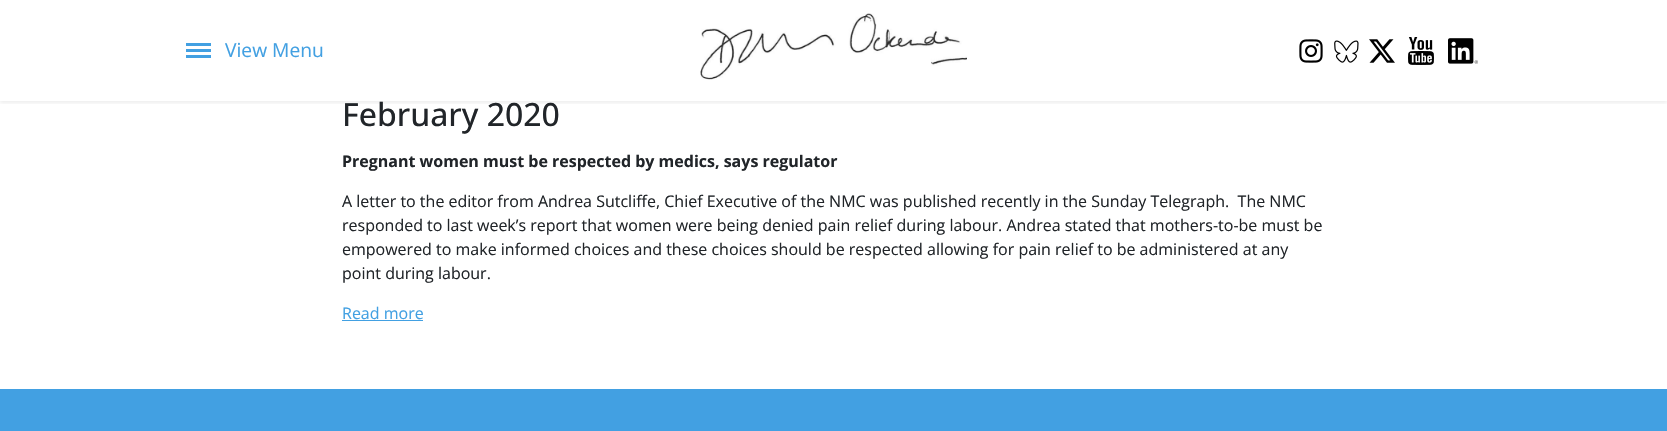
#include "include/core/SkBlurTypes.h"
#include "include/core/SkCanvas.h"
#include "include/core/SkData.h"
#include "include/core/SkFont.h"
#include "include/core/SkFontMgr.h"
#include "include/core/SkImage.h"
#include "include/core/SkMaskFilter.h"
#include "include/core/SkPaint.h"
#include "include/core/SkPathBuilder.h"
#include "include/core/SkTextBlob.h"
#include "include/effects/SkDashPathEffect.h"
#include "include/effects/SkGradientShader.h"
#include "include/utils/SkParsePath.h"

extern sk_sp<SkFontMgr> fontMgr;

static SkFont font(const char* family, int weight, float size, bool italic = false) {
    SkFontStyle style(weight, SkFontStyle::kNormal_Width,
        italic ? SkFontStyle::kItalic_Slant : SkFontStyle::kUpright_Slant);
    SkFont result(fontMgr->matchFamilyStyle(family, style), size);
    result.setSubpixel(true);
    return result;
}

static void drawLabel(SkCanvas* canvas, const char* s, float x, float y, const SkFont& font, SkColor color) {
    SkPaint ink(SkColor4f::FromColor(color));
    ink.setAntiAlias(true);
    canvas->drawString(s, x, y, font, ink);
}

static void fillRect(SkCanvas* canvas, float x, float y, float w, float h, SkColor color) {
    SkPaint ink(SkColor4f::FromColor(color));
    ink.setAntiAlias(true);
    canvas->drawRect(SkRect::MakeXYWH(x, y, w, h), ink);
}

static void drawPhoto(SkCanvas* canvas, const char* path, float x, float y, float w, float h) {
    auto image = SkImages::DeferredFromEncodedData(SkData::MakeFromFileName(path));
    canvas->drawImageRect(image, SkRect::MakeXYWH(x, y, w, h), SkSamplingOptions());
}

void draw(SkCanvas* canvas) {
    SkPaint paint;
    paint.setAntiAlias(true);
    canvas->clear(0xFFFFFFFF);
    canvas->save();
    canvas->clipRect(SkRect::MakeXYWH(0, 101, 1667, 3));
    paint.setColor(0x12000000);
    paint.setMaskFilter(SkMaskFilter::MakeBlur(kNormal_SkBlurStyle, 2));
    canvas->drawRect(SkRect::MakeXYWH(0, 2, 1667, 101), paint);
    paint.setMaskFilter(nullptr);
    canvas->restore();
    fillRect(canvas, 186, 43, 25, 3, 0xFF42A0E2);
    fillRect(canvas, 186, 49, 25, 3, 0xFF42A0E2);
    fillRect(canvas, 186, 55, 25, 3, 0xFF42A0E2);
    SkFont font1 = font("Open Sans", 400, 19.25f);
    drawLabel(canvas, "View Menu", 225, 57, font1, 0xFF42A0E2);
    drawPhoto(canvas, "assets/img1.png", 700, 13, 267, 67);
    drawPhoto(canvas, "assets/img2.png", 1299, 39, 24, 24);
    drawPhoto(canvas, "assets/img3.png", 1334, 40, 25, 23);
    drawPhoto(canvas, "assets/img4.png", 1369, 39, 26, 24);
    drawPhoto(canvas, "assets/img5.png", 1408, 37, 26, 28);
    drawPhoto(canvas, "assets/img6.png", 1448, 38, 30, 26);
    SkFont font2 = font("Open Sans", 500, 32);
    drawLabel(canvas, "February 2020", 342, 126, font2, 0xFF212529);
    SkFont font3 = font("Open Sans", 700, 16);
    drawLabel(canvas, "Pregnant women must be respected by medics, says regulator", 342, 167, font3, 0xFF212529);
    SkFont font4 = font("Open Sans", 400, 16);
    drawLabel(canvas, "A letter to the editor from Andrea Sutcliffe, Chief Executive of the NMC was published recently in the Sunday Telegraph.  The NMC", 342, 207, font4, 0xFF212529);
    drawLabel(canvas, "responded to last week’s report that women were being denied pain relief during labour. Andrea stated that mothers-to-be must be", 342, 231, font4, 0xFF212529);
    drawLabel(canvas, "empowered to make informed choices and these choices should be respected allowing for pain relief to be administered at any", 342, 255, font4, 0xFF212529);
    drawLabel(canvas, "point during labour.", 342, 279, font4, 0xFF212529);
    drawLabel(canvas, "Read more", 342, 319, font4, 0xFF42A0E2);
    fillRect(canvas, 342, 320, 81, 1, 0xFF42A0E2);
    fillRect(canvas, 0, 389, 1667, 42, 0xFF42A0E2);
}
